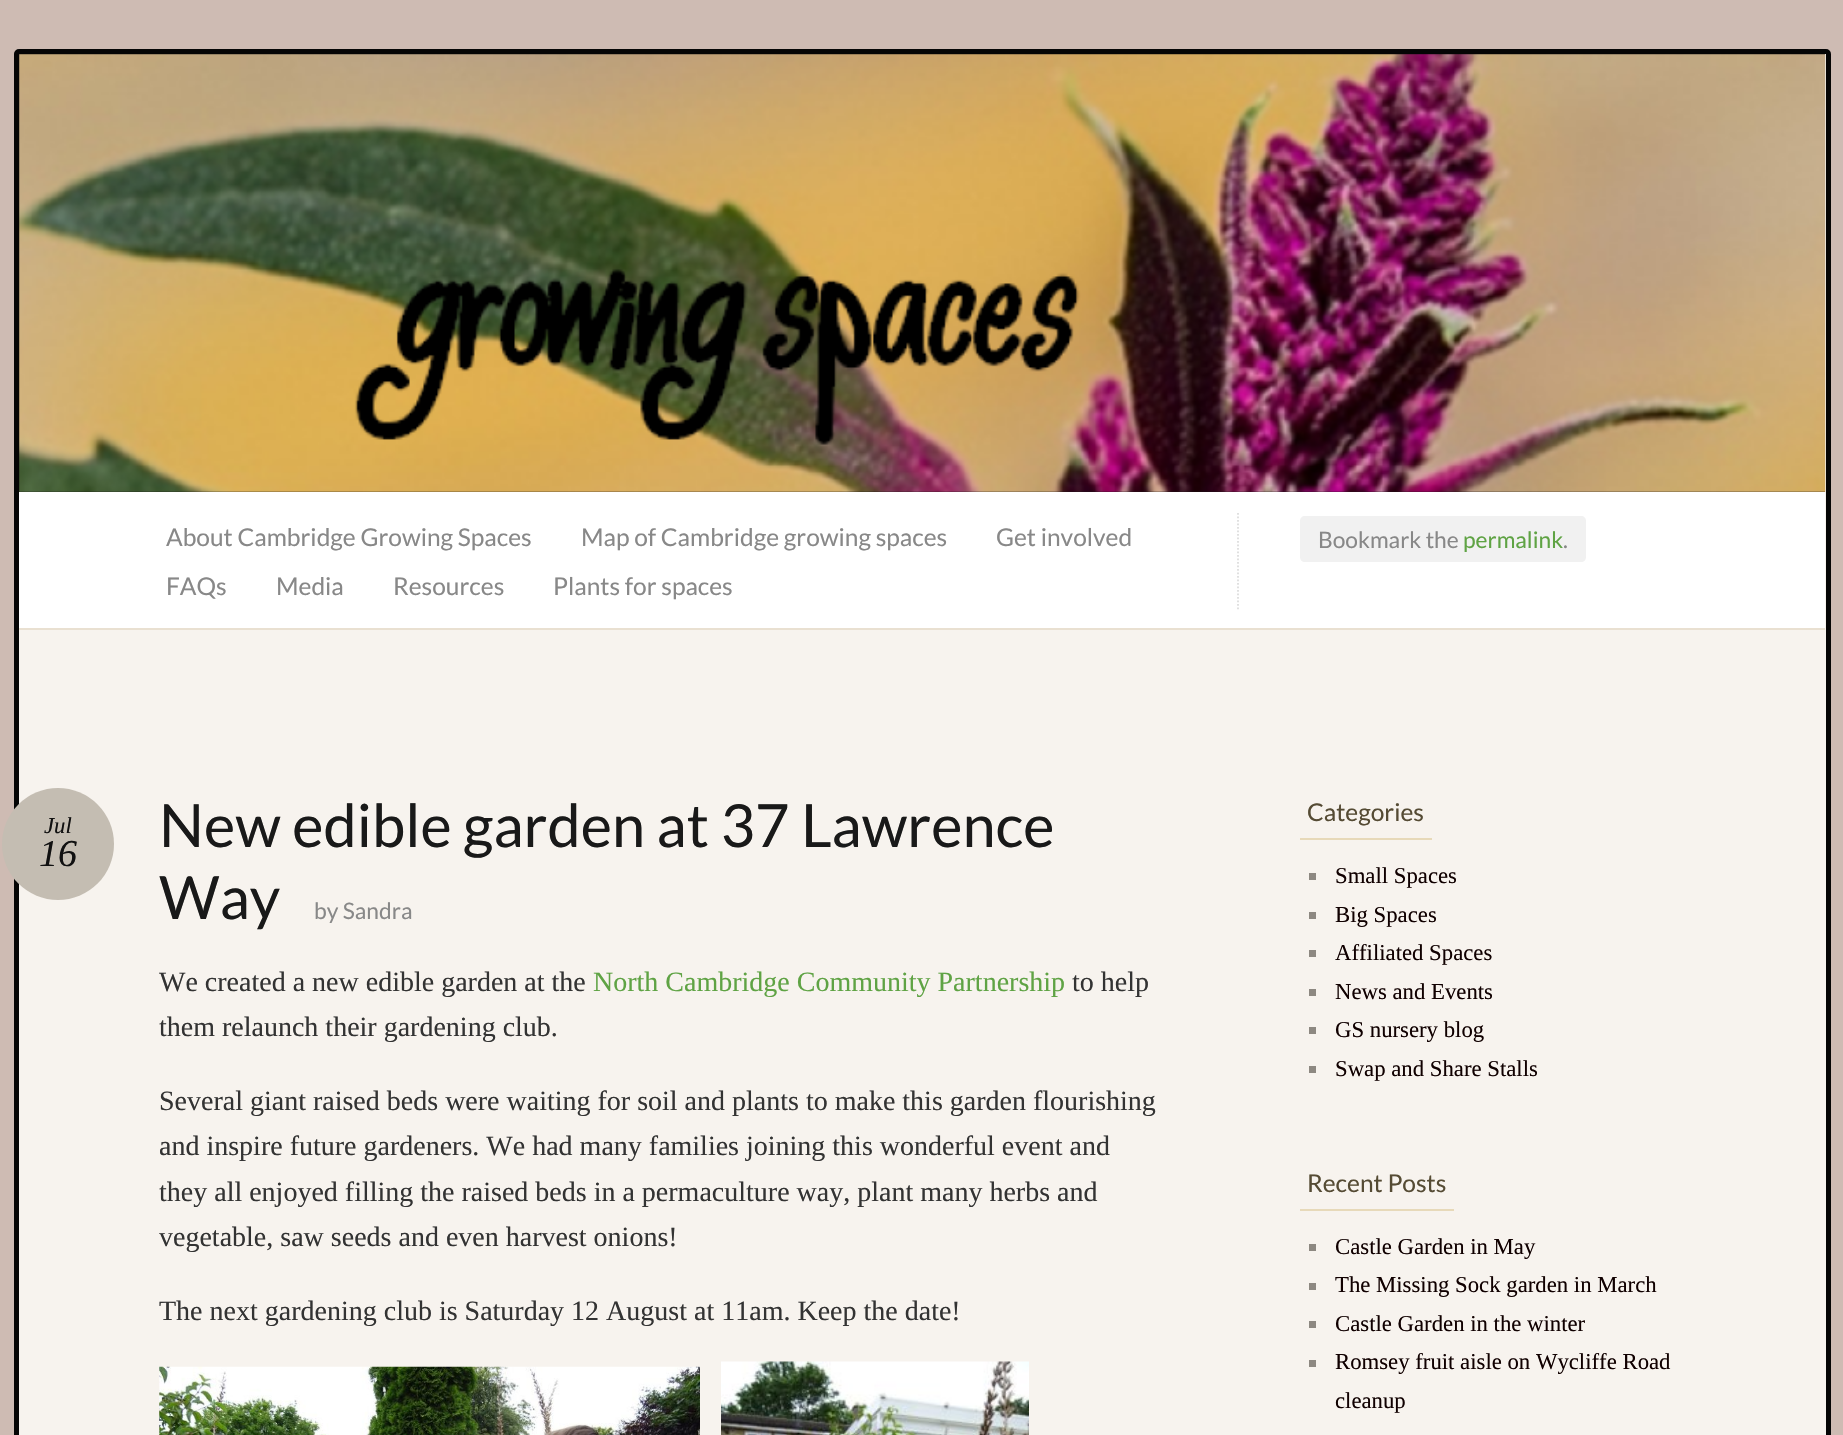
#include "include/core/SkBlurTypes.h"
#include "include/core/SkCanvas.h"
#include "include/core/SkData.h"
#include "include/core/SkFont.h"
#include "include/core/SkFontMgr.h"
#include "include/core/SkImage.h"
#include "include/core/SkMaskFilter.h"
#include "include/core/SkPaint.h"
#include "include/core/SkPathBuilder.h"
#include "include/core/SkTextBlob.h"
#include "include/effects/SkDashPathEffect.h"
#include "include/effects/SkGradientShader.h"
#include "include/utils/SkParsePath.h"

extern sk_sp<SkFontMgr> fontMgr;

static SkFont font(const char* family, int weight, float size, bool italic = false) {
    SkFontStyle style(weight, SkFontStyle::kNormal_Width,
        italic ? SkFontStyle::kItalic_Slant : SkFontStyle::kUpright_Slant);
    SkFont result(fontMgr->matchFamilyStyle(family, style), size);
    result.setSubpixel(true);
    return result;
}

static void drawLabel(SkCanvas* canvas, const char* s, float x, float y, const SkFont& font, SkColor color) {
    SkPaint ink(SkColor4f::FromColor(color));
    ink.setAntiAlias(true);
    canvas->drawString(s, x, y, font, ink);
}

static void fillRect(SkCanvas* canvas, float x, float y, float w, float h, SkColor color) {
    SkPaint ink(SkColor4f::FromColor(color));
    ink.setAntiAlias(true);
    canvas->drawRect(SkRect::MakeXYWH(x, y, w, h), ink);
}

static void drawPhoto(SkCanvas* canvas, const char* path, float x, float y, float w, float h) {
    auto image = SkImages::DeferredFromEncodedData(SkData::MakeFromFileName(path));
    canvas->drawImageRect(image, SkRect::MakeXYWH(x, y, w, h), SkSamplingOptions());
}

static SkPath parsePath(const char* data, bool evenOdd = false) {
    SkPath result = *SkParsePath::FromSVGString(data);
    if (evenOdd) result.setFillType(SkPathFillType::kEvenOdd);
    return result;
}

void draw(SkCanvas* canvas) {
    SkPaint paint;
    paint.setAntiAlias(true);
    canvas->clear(0xFFCEBBB3);
    paint.setColor(0xFFF7F3EE);
    canvas->drawRoundRect(SkRect::MakeXYWH(16.5f, 51.5f, 1812, 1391), 2.5f, 2.5f, paint);
    paint.setStroke(true);
    paint.setStrokeWidth(5);
    paint.setColor(0xFF050505);
    canvas->drawRoundRect(SkRect::MakeXYWH(16.5f, 51.5f, 1812, 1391), 2.5f, 2.5f, paint);
    fillRect(canvas, 19, 54, 1806, 438, 0xFF181818);
    drawPhoto(canvas, "assets/img1.png", 19, 54, 1807, 438);
    fillRect(canvas, 19, 492, 1806, 136, 0xFFFFFFFF);
    fillRect(canvas, 19, 628, 1806, 2, 0xFFE9E0D1);
    paint.setStrokeWidth(1.8f);
    paint.setColor(0xFFDDDDDD);
    paint.setPathEffect(SkDashPathEffect::Make({{1.75f, 1.75f}}, 0));
    canvas->drawPath(parsePath("M1238 513V611"), paint);
    paint.setPathEffect(nullptr);
    SkFont font1 = font("Lato", 400, 24.5f);
    drawLabel(canvas, "About Cambridge Growing Spaces", 166, 546, font1, 0xFF888888);
    drawLabel(canvas, "Map of Cambridge growing spaces", 581, 546, font1, 0xFF888888);
    drawLabel(canvas, "Get involved", 996, 546, font1, 0xFF888888);
    drawLabel(canvas, "FAQs", 166, 595, font1, 0xFF888888);
    drawLabel(canvas, "Media", 276, 595, font1, 0xFF888888);
    drawLabel(canvas, "Resources", 393, 595, font1, 0xFF888888);
    drawLabel(canvas, "Plants for spaces", 553, 595, font1, 0xFF888888);
    paint.setStroke(false);
    paint.setColor(0xFFF1F1F1);
    canvas->drawPath(parsePath("M1305 516H1463V562H1305C1302 562 1300 560 1300 557V521C1300 518 1302 516 1305 516Z"), paint);
    SkFont font2 = font("Lato", 400, 22.75f);
    drawLabel(canvas, "Bookmark the", 1318, 548, font2, 0xFF888888);
    fillRect(canvas, 1463, 516, 100, 46, 0xFFF1F1F1);
    drawLabel(canvas, "permalink", 1463, 548, font2, 0xFF5FA344);
    canvas->drawPath(parsePath("M1563 516H1581C1584 516 1586 518 1586 521V557C1586 560 1584 562 1581 562H1563Z"), paint);
    drawLabel(canvas, ".", 1563, 548, font2, 0xFF888888);
    SkFont font3 = font("Lato", 400, 59.5f);
    drawLabel(canvas, "New edible garden at 37 Lawrence", 159, 847, font3, 0xFF191919);
    paint.setColor(0xFFC4BDB2);
    canvas->drawCircle(58, 844, 56, paint);
    SkFont font4 = font("Liberation Serif", 400, 22.75f, true);
    drawLabel(canvas, "Jul", 44, 833, font4, 0xFF111111);
    SkFont font5 = font("Liberation Serif", 400, 38, true);
    drawLabel(canvas, "16", 39, 866, font5, 0xFF111111);
    drawLabel(canvas, "by Sandra", 314, 919, font2, 0xFF888888);
    drawLabel(canvas, "Way", 159, 919, font3, 0xFF191919);
    SkFont font6 = font("Liberation Serif", 400, 28);
    drawLabel(canvas, "We created a new edible garden at the", 159, 991, font6, 0xFF333333);
    drawLabel(canvas, "North Cambridge Community Partnership", 593, 991, font6, 0xFF5FA344);
    drawLabel(canvas, "to help", 1072, 991, font6, 0xFF333333);
    drawLabel(canvas, "them relaunch their gardening club.", 159, 1036, font6, 0xFF333333);
    drawLabel(canvas, "Several giant raised beds were waiting for soil and plants to make this garden flourishing", 159, 1110, font6, 0xFF333333);
    drawLabel(canvas, "and inspire future gardeners. We had many families joining this wonderful event and", 159, 1155, font6, 0xFF333333);
    drawLabel(canvas, "they all enjoyed filling the raised beds in a permaculture way, plant many herbs and", 159, 1201, font6, 0xFF333333);
    drawLabel(canvas, "vegetable, saw seeds and even harvest onions!", 159, 1246, font6, 0xFF333333);
    drawLabel(canvas, "The next gardening club is Saturday 12 August at 11am. Keep the date!", 159, 1320, font6, 0xFF333333);
    drawPhoto(canvas, "assets/img2.png", 159, 1366, 541, 69);
    drawPhoto(canvas, "assets/img3.png", 721, 1361, 308, 74);
    fillRect(canvas, 1300, 838, 132, 2, 0xFFE7D9B9);
    drawLabel(canvas, "Categories", 1307, 821, font1, 0xFF554B34);
    fillRect(canvas, 1309, 873, 7, 7, 0xFF8D8881);
    SkFont font7 = font("Liberation Serif", 400, 22.75f);
    drawLabel(canvas, "Small Spaces", 1335, 883, font7, 0xFF100000);
    fillRect(canvas, 1309, 912, 7, 7, 0xFF8D8881);
    drawLabel(canvas, "Big Spaces", 1335, 922, font7, 0xFF100000);
    fillRect(canvas, 1309, 950, 7, 7, 0xFF8D8881);
    drawLabel(canvas, "Affiliated Spaces", 1335, 960, font7, 0xFF100000);
    fillRect(canvas, 1309, 989, 7, 7, 0xFF8D8881);
    drawLabel(canvas, "News and Events", 1335, 999, font7, 0xFF100000);
    fillRect(canvas, 1309, 1027, 7, 7, 0xFF8D8881);
    drawLabel(canvas, "GS nursery blog", 1335, 1037, font7, 0xFF100000);
    fillRect(canvas, 1309, 1066, 7, 7, 0xFF8D8881);
    drawLabel(canvas, "Swap and Share Stalls", 1335, 1076, font7, 0xFF100000);
    fillRect(canvas, 1300, 1209, 154, 2, 0xFFE7D9B9);
    drawLabel(canvas, "Recent Posts", 1307, 1192, font1, 0xFF554B34);
    fillRect(canvas, 1309, 1244, 7, 7, 0xFF8D8881);
    drawLabel(canvas, "Castle Garden in May", 1335, 1254, font7, 0xFF100000);
    fillRect(canvas, 1309, 1283, 7, 7, 0xFF8D8881);
    drawLabel(canvas, "The Missing Sock garden in March", 1335, 1292, font7, 0xFF100000);
    fillRect(canvas, 1309, 1321, 7, 7, 0xFF8D8881);
    drawLabel(canvas, "Castle Garden in the winter", 1335, 1331, font7, 0xFF100000);
    fillRect(canvas, 1309, 1360, 7, 7, 0xFF8D8881);
    drawLabel(canvas, "Romsey fruit aisle on Wycliffe Road", 1335, 1369, font7, 0xFF100000);
    drawLabel(canvas, "cleanup", 1335, 1408, font7, 0xFF100000);
}
